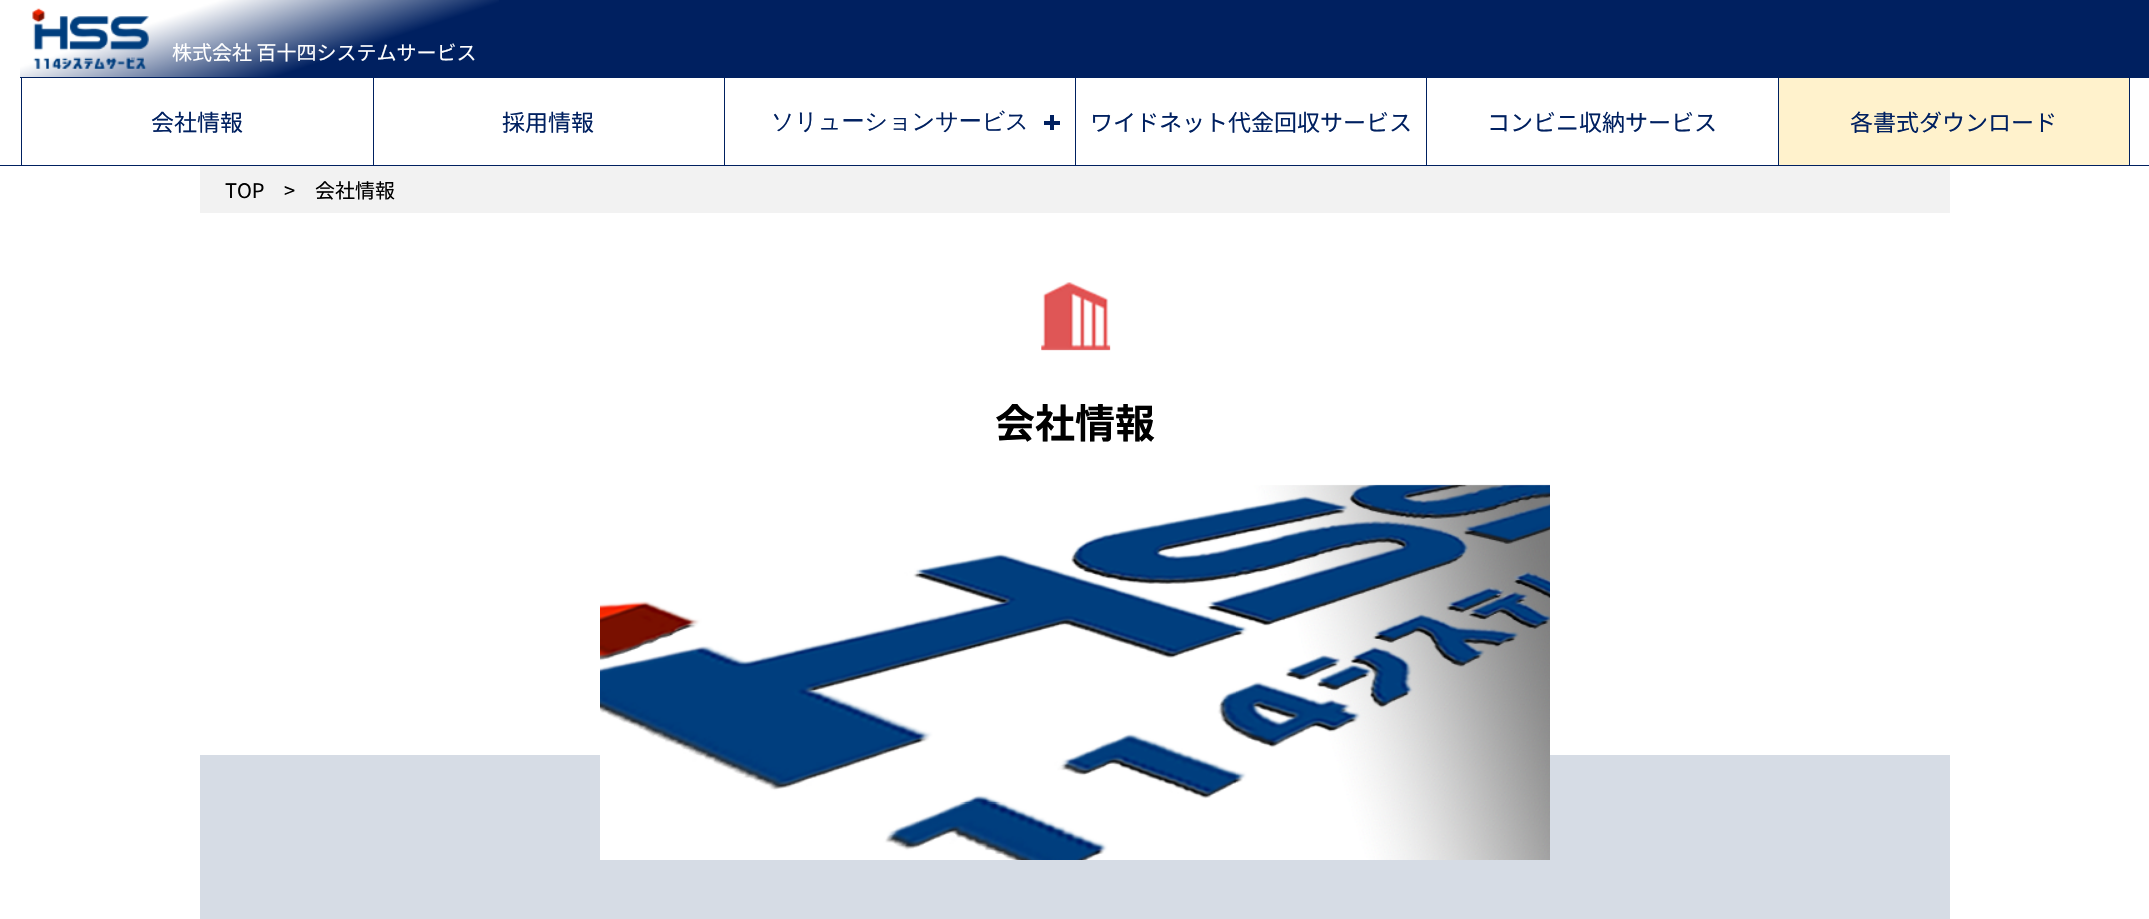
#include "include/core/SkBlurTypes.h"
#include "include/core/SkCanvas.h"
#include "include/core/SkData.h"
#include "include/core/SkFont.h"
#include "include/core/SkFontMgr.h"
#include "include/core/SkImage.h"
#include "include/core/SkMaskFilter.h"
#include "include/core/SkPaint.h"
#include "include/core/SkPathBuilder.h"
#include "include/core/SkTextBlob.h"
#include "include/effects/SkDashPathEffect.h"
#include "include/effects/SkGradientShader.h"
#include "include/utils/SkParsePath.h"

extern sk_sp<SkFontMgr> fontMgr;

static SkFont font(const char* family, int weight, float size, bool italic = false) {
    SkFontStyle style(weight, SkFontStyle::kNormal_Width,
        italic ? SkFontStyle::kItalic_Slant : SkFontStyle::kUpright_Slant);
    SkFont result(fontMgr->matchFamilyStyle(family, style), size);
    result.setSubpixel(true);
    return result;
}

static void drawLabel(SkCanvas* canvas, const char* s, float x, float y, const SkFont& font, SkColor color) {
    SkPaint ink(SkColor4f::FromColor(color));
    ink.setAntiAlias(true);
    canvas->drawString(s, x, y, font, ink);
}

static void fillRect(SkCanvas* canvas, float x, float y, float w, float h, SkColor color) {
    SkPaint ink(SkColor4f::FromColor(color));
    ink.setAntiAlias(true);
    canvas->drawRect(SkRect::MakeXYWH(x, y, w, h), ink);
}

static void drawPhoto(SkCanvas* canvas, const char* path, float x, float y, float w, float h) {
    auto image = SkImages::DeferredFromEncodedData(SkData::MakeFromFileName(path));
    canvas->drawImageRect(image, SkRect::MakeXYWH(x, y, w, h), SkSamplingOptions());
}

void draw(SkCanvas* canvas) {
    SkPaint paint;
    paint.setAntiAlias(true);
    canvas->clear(0xFFFFFFFF);
    fillRect(canvas, 20, 0, 2129, 78, 0xFF002060);
    drawPhoto(canvas, "assets/img1.png", 20, 0, 479, 77);
    drawPhoto(canvas, "assets/img2.png", 32, 8, 117, 61);
    SkFont font1 = font("Noto Sans JP", 400, 20);
    drawLabel(canvas, "株式会社 百十四システムサービス", 172, 60, font1, 0xFFFFFFFF);
    fillRect(canvas, 21, 78, 1, 87, 0xFF002060);
    SkFont font2 = font("Noto Sans JP", 400, 23);
    drawLabel(canvas, "会社情報", 151, 131, font2, 0xFF002060);
    fillRect(canvas, 373, 78, 1, 87, 0xFF002060);
    drawLabel(canvas, "採用情報", 502, 131, font2, 0xFF002060);
    fillRect(canvas, 724, 78, 1, 87, 0xFF002060);
    SkFont font3 = font("WenQuanYi Zen Hei", 500, 23);
    drawLabel(canvas, "ソリューションサービス", 771, 129, font3, 0xFF002060);
    fillRect(canvas, 1044, 121, 16, 4, 0xFF002060);
    fillRect(canvas, 1050, 115, 4, 15, 0xFF002060);
    fillRect(canvas, 1075, 78, 1, 87, 0xFF002060);
    drawLabel(canvas, "ワイドネット代金回収サービス", 1090, 131, font2, 0xFF002060);
    fillRect(canvas, 1426, 78, 1, 87, 0xFF002060);
    drawLabel(canvas, "コンビニ収納サービス", 1487, 131, font2, 0xFF002060);
    fillRect(canvas, 2129, 78, 1, 87, 0xFF002060);
    fillRect(canvas, 1778, 78, 1, 87, 0xFF002060);
    fillRect(canvas, 1779, 78, 350, 87, 0xFFFFF2CC);
    drawLabel(canvas, "各書式ダウンロード", 1850, 131, font2, 0xFF002060);
    fillRect(canvas, 0, 165, 2149, 1, 0xFF002060);
    fillRect(canvas, 200, 166, 1750, 47, 0xFFF2F2F2);
    drawLabel(canvas, "TOP", 225, 198, font1, 0xFF000000);
    drawLabel(canvas, ">　会社情報", 284, 198, font1, 0xFF000000);
    drawPhoto(canvas, "assets/img3.png", 1041, 282, 70, 69);
    SkFont font4 = font("Noto Sans JP", 700, 40);
    drawLabel(canvas, "会社情報", 995, 438, font4, 0xFF000000);
    fillRect(canvas, 200, 755, 1750, 164, 0xFFD6DCE5);
    drawPhoto(canvas, "assets/img4.png", 600, 484, 950, 376);
}
